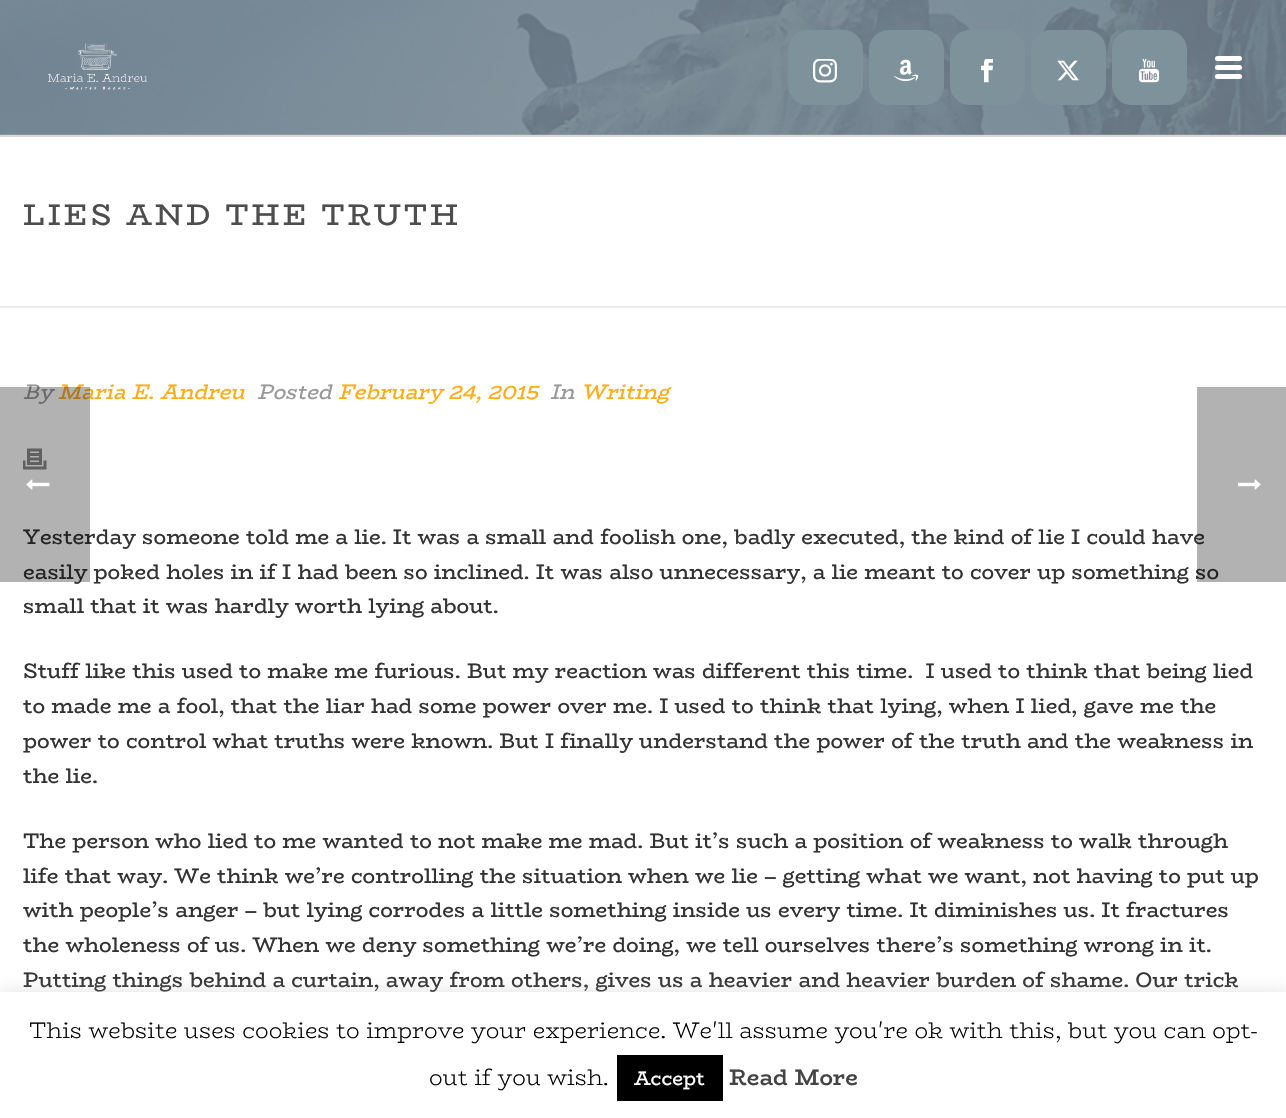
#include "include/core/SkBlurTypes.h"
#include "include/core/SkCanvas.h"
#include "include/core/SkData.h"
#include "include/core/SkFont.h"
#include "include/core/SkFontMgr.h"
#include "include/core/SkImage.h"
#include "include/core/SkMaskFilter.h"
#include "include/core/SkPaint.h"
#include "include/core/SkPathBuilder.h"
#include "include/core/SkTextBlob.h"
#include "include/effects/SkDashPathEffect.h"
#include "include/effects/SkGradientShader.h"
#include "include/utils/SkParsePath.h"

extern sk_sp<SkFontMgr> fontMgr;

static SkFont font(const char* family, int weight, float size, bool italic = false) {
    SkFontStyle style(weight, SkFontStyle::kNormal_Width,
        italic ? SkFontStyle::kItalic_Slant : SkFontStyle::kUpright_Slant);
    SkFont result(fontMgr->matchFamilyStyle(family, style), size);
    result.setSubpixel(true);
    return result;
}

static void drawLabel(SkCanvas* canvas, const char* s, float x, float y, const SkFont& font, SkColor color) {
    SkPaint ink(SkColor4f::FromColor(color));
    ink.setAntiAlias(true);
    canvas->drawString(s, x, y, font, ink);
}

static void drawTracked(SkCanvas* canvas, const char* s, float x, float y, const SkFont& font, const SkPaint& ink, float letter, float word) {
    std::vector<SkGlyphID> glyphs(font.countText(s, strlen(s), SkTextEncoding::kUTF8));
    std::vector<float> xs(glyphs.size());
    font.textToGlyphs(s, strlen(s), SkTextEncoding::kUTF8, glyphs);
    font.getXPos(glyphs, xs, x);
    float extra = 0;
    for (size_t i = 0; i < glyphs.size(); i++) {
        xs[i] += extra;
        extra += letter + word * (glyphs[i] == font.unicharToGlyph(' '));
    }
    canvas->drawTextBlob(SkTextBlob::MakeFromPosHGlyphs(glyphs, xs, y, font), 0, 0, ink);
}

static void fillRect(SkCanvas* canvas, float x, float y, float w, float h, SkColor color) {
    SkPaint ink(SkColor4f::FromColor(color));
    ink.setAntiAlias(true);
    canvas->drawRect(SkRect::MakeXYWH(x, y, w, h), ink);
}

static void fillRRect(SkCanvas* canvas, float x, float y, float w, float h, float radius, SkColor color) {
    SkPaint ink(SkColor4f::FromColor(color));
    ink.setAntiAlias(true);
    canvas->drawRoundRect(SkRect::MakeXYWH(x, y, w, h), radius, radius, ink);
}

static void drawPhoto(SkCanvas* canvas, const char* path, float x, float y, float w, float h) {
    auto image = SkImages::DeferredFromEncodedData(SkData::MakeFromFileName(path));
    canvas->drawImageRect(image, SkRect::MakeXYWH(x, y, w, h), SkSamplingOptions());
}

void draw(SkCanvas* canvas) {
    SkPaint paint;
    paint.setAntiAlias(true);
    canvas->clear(0xFFFFFFFF);
    fillRect(canvas, 0, 306, 1286, 2, 0xFFEDEDED);
    fillRect(canvas, 0, 135, 1286, 2, 0xFFD8D8D8);
    drawPhoto(canvas, "assets/img1.png", 0, 0, 1286, 135);
    paint.setColor(0xFF7E929C);
    canvas->drawRoundRect(SkRect::MakeXYWH(789, 31, 73, 73), 19, 19, paint);
    paint.setStroke(true);
    paint.setStrokeWidth(2);
    canvas->drawRoundRect(SkRect::MakeXYWH(789, 31, 73, 73), 19, 19, paint);
    drawPhoto(canvas, "assets/img2.png", 813, 59, 24, 24);
    paint.setStroke(false);
    canvas->drawRoundRect(SkRect::MakeXYWH(870, 31, 73, 73), 19, 19, paint);
    paint.setStroke(true);
    canvas->drawRoundRect(SkRect::MakeXYWH(870, 31, 73, 73), 19, 19, paint);
    drawPhoto(canvas, "assets/img3.png", 894, 59, 24, 23);
    paint.setStroke(false);
    canvas->drawRoundRect(SkRect::MakeXYWH(951, 31, 73, 73), 19, 19, paint);
    paint.setStroke(true);
    canvas->drawRoundRect(SkRect::MakeXYWH(951, 31, 73, 73), 19, 19, paint);
    drawPhoto(canvas, "assets/img4.png", 981, 59, 12, 24);
    paint.setStroke(false);
    canvas->drawRoundRect(SkRect::MakeXYWH(1032, 31, 73, 73), 19, 19, paint);
    paint.setStroke(true);
    canvas->drawRoundRect(SkRect::MakeXYWH(1032, 31, 73, 73), 19, 19, paint);
    drawPhoto(canvas, "assets/img5.png", 1057, 60, 22, 21);
    paint.setStroke(false);
    canvas->drawRoundRect(SkRect::MakeXYWH(1113, 31, 73, 73), 19, 19, paint);
    paint.setStroke(true);
    canvas->drawRoundRect(SkRect::MakeXYWH(1113, 31, 73, 73), 19, 19, paint);
    drawPhoto(canvas, "assets/img6.png", 1139, 59, 20, 24);
    drawPhoto(canvas, "assets/img7.png", 48, 43, 99, 47);
    fillRRect(canvas, 1215, 56, 27, 5, 2.5f, 0xFFFFFFFF);
    fillRRect(canvas, 1215, 65, 27, 5, 2.5f, 0xFFFFFFFF);
    fillRRect(canvas, 1215, 74, 27, 5, 2.5f, 0xFFFFFFFF);
    SkFont font1 = font("BioRhyme", 400, 30);
    paint.setStroke(false);
    paint.setColor(0xFF4D4D4D);
    drawTracked(canvas, "LIES AND THE TRUTH", 23, 225, font1, paint, 3, 0);
    SkFont font2 = font("BioRhyme", 400, 21, true);
    drawLabel(canvas, "By", 23, 399, font2, 0xFF999999);
    drawLabel(canvas, "Maria E. Andreu", 58, 399, font2, 0xFFFFAD16);
    drawLabel(canvas, "Posted", 257, 399, font2, 0xFF999999);
    drawLabel(canvas, "February 24, 2015", 338, 399, font2, 0xFFFFAD16);
    drawLabel(canvas, "In", 550, 399, font2, 0xFF999999);
    drawLabel(canvas, "Writing", 581, 399, font2, 0xFFFFAD16);
    drawPhoto(canvas, "assets/img8.png", 23, 448, 24, 22);
    SkFont font3 = font("BioRhyme", 400, 21);
    drawLabel(canvas, "Yesterday someone told me a lie. It was a small and foolish one, badly executed, the kind of lie I could have", 23, 544, font3, 0xFF333333);
    drawLabel(canvas, "easily poked holes in if I had been so inclined. It was also unnecessary, a lie meant to cover up something so", 23, 579, font3, 0xFF333333);
    drawLabel(canvas, "small that it was hardly worth lying about.", 23, 613, font3, 0xFF333333);
    drawLabel(canvas, "Stuff like this used to make me furious. But my reaction was different this time.  I used to think that being lied", 23, 678, font3, 0xFF333333);
    drawLabel(canvas, "to made me a fool, that the liar had some power over me. I used to think that lying, when I lied, gave me the", 23, 713, font3, 0xFF333333);
    drawLabel(canvas, "power to control what truths were known. But I finally understand the power of the truth and the weakness in", 23, 748, font3, 0xFF333333);
    drawLabel(canvas, "the lie.", 23, 783, font3, 0xFF333333);
    drawLabel(canvas, "The person who lied to me wanted to not make me mad. But it’s such a position of weakness to walk through", 23, 848, font3, 0xFF333333);
    drawLabel(canvas, "life that way. We think we’re controlling the situation when we lie – getting what we want, not having to put up", 23, 883, font3, 0xFF333333);
    drawLabel(canvas, "with people’s anger – but lying corrodes a little something inside us every time. It diminishes us. It fractures", 23, 917, font3, 0xFF333333);
    drawLabel(canvas, "the wholeness of us. When we deny something we’re doing, we tell ourselves there’s something wrong in it.", 23, 952, font3, 0xFF333333);
    drawLabel(canvas, "Putting things behind a curtain, away from others, gives us a heavier and heavier burden of shame. Our trick", 23, 987, font3, 0xFF333333);
    fillRect(canvas, 0, 387, 90, 195, 0x4D000000);
    drawPhoto(canvas, "assets/img9.png", 26, 479, 24, 11);
    fillRect(canvas, 1197, 387, 89, 195, 0x4D000000);
    drawPhoto(canvas, "assets/img10.png", 1238, 479, 23, 11);
    paint.setColor(0x4DACABAB);
    paint.setMaskFilter(SkMaskFilter::MakeBlur(kNormal_SkBlurStyle, 7.5f));
    canvas->drawRect(SkRect::MakeXYWH(0, 990, 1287, 128), paint);
    paint.setMaskFilter(nullptr);
    fillRect(canvas, 0, 992, 1286, 126, 0xFFFFFFFF);
    SkFont font4 = font("BioRhyme", 300, 22.5f);
    drawLabel(canvas, "This website uses cookies to improve your experience. We'll assume you're ok with this, but you can opt-", 29, 1038, font4, 0xFF000000);
    drawLabel(canvas, "out if you wish.", 429, 1085, font4, 0xFF000000);
    fillRect(canvas, 617, 1055, 106, 46, 0xFF000000);
    SkFont font5 = font("BioRhyme", 400, 19.5f);
    drawLabel(canvas, "Accept", 634, 1085, font5, 0xFFFFFFFF);
    SkFont font6 = font("BioRhyme", 600, 22.5f);
    drawLabel(canvas, "Read More", 729, 1085, font6, 0xFF444444);
}
